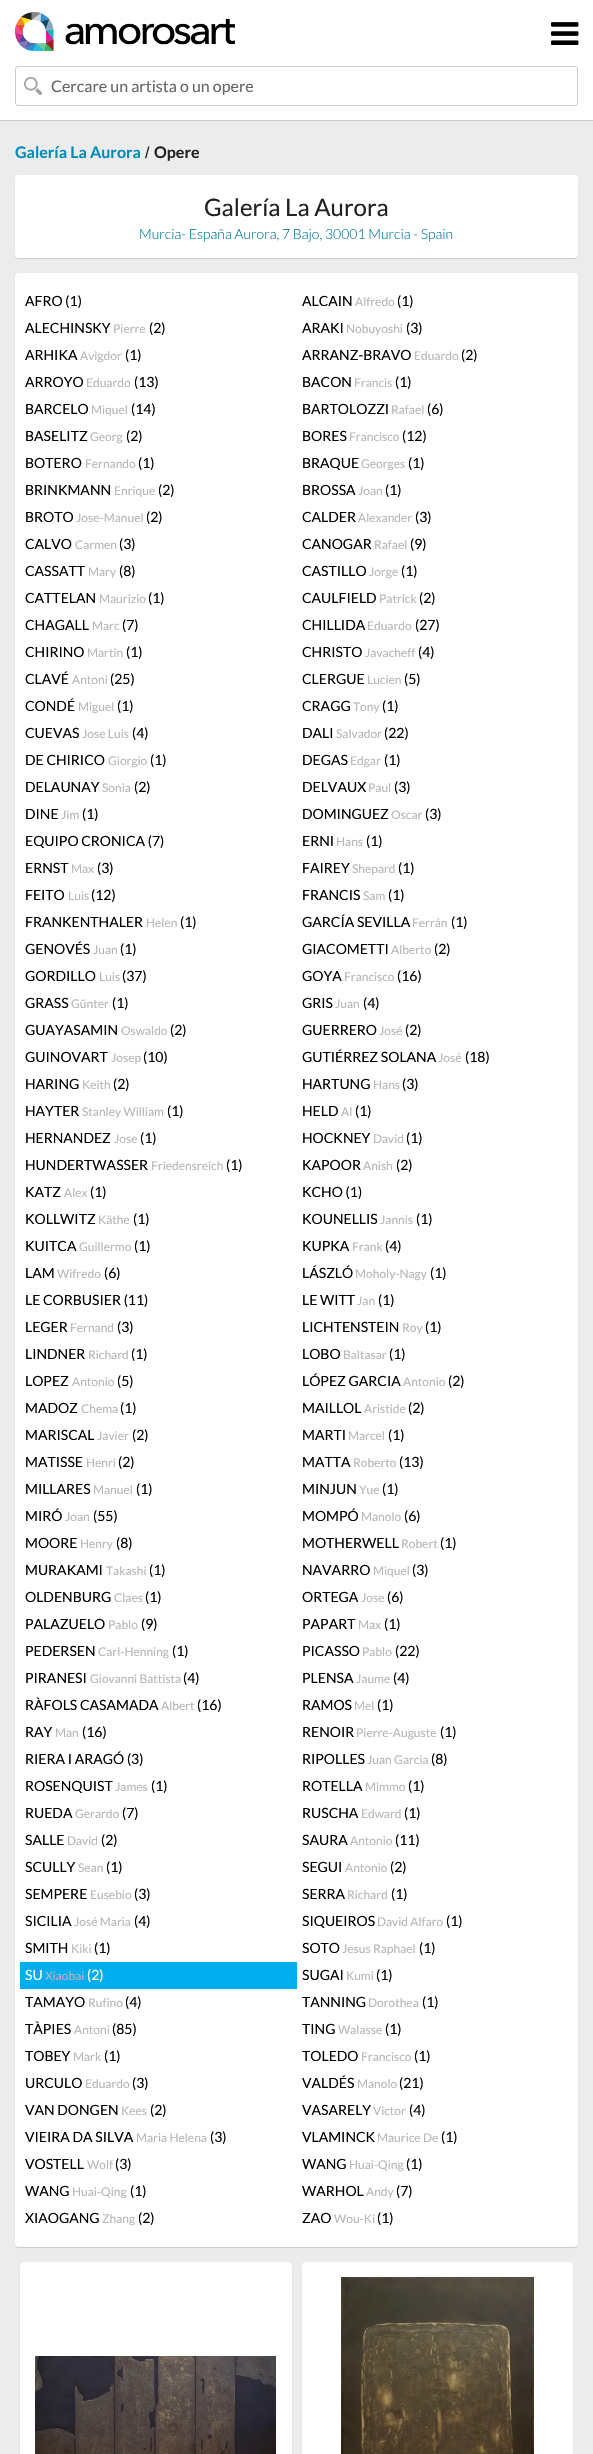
#include "include/core/SkBlurTypes.h"
#include "include/core/SkCanvas.h"
#include "include/core/SkData.h"
#include "include/core/SkFont.h"
#include "include/core/SkFontMgr.h"
#include "include/core/SkImage.h"
#include "include/core/SkMaskFilter.h"
#include "include/core/SkPaint.h"
#include "include/core/SkPathBuilder.h"
#include "include/core/SkTextBlob.h"
#include "include/effects/SkDashPathEffect.h"
#include "include/effects/SkGradientShader.h"
#include "include/utils/SkParsePath.h"

extern sk_sp<SkFontMgr> fontMgr;

static SkFont font(const char* family, int weight, float size, bool italic = false) {
    SkFontStyle style(weight, SkFontStyle::kNormal_Width,
        italic ? SkFontStyle::kItalic_Slant : SkFontStyle::kUpright_Slant);
    SkFont result(fontMgr->matchFamilyStyle(family, style), size);
    result.setSubpixel(true);
    return result;
}

static void drawLabel(SkCanvas* canvas, const char* s, float x, float y, const SkFont& font, SkColor color) {
    SkPaint ink(SkColor4f::FromColor(color));
    ink.setAntiAlias(true);
    canvas->drawString(s, x, y, font, ink);
}

static void fillRect(SkCanvas* canvas, float x, float y, float w, float h, SkColor color) {
    SkPaint ink(SkColor4f::FromColor(color));
    ink.setAntiAlias(true);
    canvas->drawRect(SkRect::MakeXYWH(x, y, w, h), ink);
}

static void fillRRect(SkCanvas* canvas, float x, float y, float w, float h, float radius, SkColor color) {
    SkPaint ink(SkColor4f::FromColor(color));
    ink.setAntiAlias(true);
    canvas->drawRoundRect(SkRect::MakeXYWH(x, y, w, h), radius, radius, ink);
}

static void drawPhoto(SkCanvas* canvas, const char* path, float x, float y, float w, float h) {
    auto image = SkImages::DeferredFromEncodedData(SkData::MakeFromFileName(path));
    canvas->drawImageRect(image, SkRect::MakeXYWH(x, y, w, h), SkSamplingOptions());
}

void draw(SkCanvas* canvas) {
    SkPaint paint;
    paint.setAntiAlias(true);
    canvas->clear(0xFFECECEC);
    paint.setColor(0xFFCCCCCC);
    paint.setMaskFilter(SkMaskFilter::MakeBlur(kNormal_SkBlurStyle, 0.5f));
    canvas->drawRect(SkRect::MakeXYWH(0, 1, 593, 120), paint);
    paint.setMaskFilter(nullptr);
    fillRect(canvas, 0, 0, 593, 120, 0xFFFFFFFF);
    drawPhoto(canvas, "assets/img1.png", 15, 12, 220, 39);
    drawPhoto(canvas, "assets/img2.png", 551, 22, 28, 23);
    drawPhoto(canvas, "assets/img3.png", 24, 77, 18, 18);
    paint.setStroke(true);
    paint.setStrokeWidth(1);
    canvas->drawRoundRect(SkRect::MakeXYWH(15.5f, 66.5f, 562, 39), 2.5f, 2.5f, paint);
    SkFont font1 = font("Lato", 400, 16);
    drawLabel(canvas, "Cercare un artista o un opere", 51, 92, font1, 0xFF666666);
    SkFont font2 = font("Lato", 700, 16);
    drawLabel(canvas, "Galería La Aurora", 15, 158, font2, 0xFF008CBA);
    SkFont font3 = font("Liberation Sans", 400, 16);
    drawLabel(canvas, "/", 145, 158, font3, 0xFF222222);
    drawLabel(canvas, "Opere", 154, 158, font2, 0xFF222222);
    paint.setStroke(false);
    paint.setMaskFilter(SkMaskFilter::MakeBlur(kNormal_SkBlurStyle, 0.5f));
    canvas->drawRoundRect(SkRect::MakeXYWH(15, 176, 563, 83), 4, 4, paint);
    paint.setMaskFilter(nullptr);
    fillRRect(canvas, 15, 175, 563, 83, 4, 0xFFFFFFFF);
    SkFont font4 = font("Lato", 400, 24);
    drawLabel(canvas, "Galería La Aurora", 204, 216, font4, 0xFF222222);
    SkFont font5 = font("Lato", 300, 14);
    drawLabel(canvas, "Murcia- España Aurora, 7 Bajo, 30001 Murcia - Spain", 139, 239, font5, 0xFF0075A1);
    paint.setMaskFilter(SkMaskFilter::MakeBlur(kNormal_SkBlurStyle, 0.5f));
    canvas->drawRoundRect(SkRect::MakeXYWH(15, 274, 563, 1974), 4, 4, paint);
    paint.setMaskFilter(nullptr);
    fillRRect(canvas, 15, 273, 563, 1974, 4, 0xFFFFFFFF);
    SkFont font6 = font("Lato", 400, 14);
    drawLabel(canvas, "AFRO (1)", 25, 306, font6, 0xFF000000);
    drawLabel(canvas, "ALCAIN", 302, 306, font6, 0xFF000000);
    SkFont font7 = font("Lato", 400, 12);
    drawLabel(canvas, "Alfredo", 355, 306, font7, 0xFFB7B7B7);
    drawLabel(canvas, "(1)", 397, 306, font6, 0xFF000000);
    drawLabel(canvas, "ALECHINSKY", 25, 333, font6, 0xFF000000);
    drawLabel(canvas, "Pierre", 113, 333, font7, 0xFFB7B7B7);
    drawLabel(canvas, "(2)", 149, 333, font6, 0xFF000000);
    drawLabel(canvas, "ARAKI", 302, 333, font6, 0xFF000000);
    drawLabel(canvas, "Nobuyoshi", 346, 333, font7, 0xFFB7B7B7);
    drawLabel(canvas, "(3)", 406, 333, font6, 0xFF000000);
    drawLabel(canvas, "ARHIKA", 25, 360, font6, 0xFF000000);
    drawLabel(canvas, "Avigdor", 80, 360, font7, 0xFFB7B7B7);
    drawLabel(canvas, "(1)", 125, 360, font6, 0xFF000000);
    drawLabel(canvas, "ARRANZ-BRAVO", 302, 360, font6, 0xFF000000);
    drawLabel(canvas, "Eduardo", 414, 360, font7, 0xFFB7B7B7);
    drawLabel(canvas, "(2)", 461, 360, font6, 0xFF000000);
    drawLabel(canvas, "ARROYO", 25, 387, font6, 0xFF000000);
    drawLabel(canvas, "Eduardo", 86, 387, font7, 0xFFB7B7B7);
    drawLabel(canvas, "(13)", 134, 387, font6, 0xFF000000);
    drawLabel(canvas, "BACON", 302, 387, font6, 0xFF000000);
    drawLabel(canvas, "Francis", 354, 387, font7, 0xFFB7B7B7);
    drawLabel(canvas, "(1)", 395, 387, font6, 0xFF000000);
    drawLabel(canvas, "BARCELO", 25, 414, font6, 0xFF000000);
    drawLabel(canvas, "Miquel", 91, 414, font7, 0xFFB7B7B7);
    drawLabel(canvas, "(14)", 131, 414, font6, 0xFF000000);
    drawLabel(canvas, "BARTOLOZZI", 302, 414, font6, 0xFF000000);
    drawLabel(canvas, "Rafael", 391, 414, font7, 0xFFB7B7B7);
    drawLabel(canvas, "(6)", 427, 414, font6, 0xFF000000);
    drawLabel(canvas, "BASELITZ", 25, 441, font6, 0xFF000000);
    drawLabel(canvas, "Georg", 90, 441, font7, 0xFFB7B7B7);
    drawLabel(canvas, "(2)", 126, 441, font6, 0xFF000000);
    drawLabel(canvas, "BORES", 302, 441, font6, 0xFF000000);
    drawLabel(canvas, "Francisco", 349, 441, font7, 0xFFB7B7B7);
    drawLabel(canvas, "(12)", 402, 441, font6, 0xFF000000);
    drawLabel(canvas, "BOTERO", 25, 468, font6, 0xFF000000);
    drawLabel(canvas, "Fernando", 85, 468, font7, 0xFFB7B7B7);
    drawLabel(canvas, "(1)", 138, 468, font6, 0xFF000000);
    drawLabel(canvas, "BRAQUE", 302, 468, font6, 0xFF000000);
    drawLabel(canvas, "Georges", 361, 468, font7, 0xFFB7B7B7);
    drawLabel(canvas, "(1)", 408, 468, font6, 0xFF000000);
    drawLabel(canvas, "BRINKMANN", 25, 495, font6, 0xFF000000);
    drawLabel(canvas, "Enrique", 114, 495, font7, 0xFFB7B7B7);
    drawLabel(canvas, "(2)", 158, 495, font6, 0xFF000000);
    drawLabel(canvas, "BROSSA", 302, 495, font6, 0xFF000000);
    drawLabel(canvas, "Joan", 358, 495, font7, 0xFFB7B7B7);
    drawLabel(canvas, "(1)", 385, 495, font6, 0xFF000000);
    drawLabel(canvas, "BROTO", 25, 522, font6, 0xFF000000);
    drawLabel(canvas, "Jose-Manuel", 76, 522, font7, 0xFFB7B7B7);
    drawLabel(canvas, "(2)", 146, 522, font6, 0xFF000000);
    drawLabel(canvas, "CALDER", 302, 522, font6, 0xFF000000);
    drawLabel(canvas, "Alexander", 358, 522, font7, 0xFFB7B7B7);
    drawLabel(canvas, "(3)", 415, 522, font6, 0xFF000000);
    drawLabel(canvas, "CALVO", 25, 549, font6, 0xFF000000);
    drawLabel(canvas, "Carmen", 75, 549, font7, 0xFFB7B7B7);
    drawLabel(canvas, "(3)", 119, 549, font6, 0xFF000000);
    drawLabel(canvas, "CANOGAR", 302, 549, font6, 0xFF000000);
    drawLabel(canvas, "Rafael", 374, 549, font7, 0xFFB7B7B7);
    drawLabel(canvas, "(9)", 410, 549, font6, 0xFF000000);
    drawLabel(canvas, "CASSATT", 25, 576, font6, 0xFF000000);
    drawLabel(canvas, "Mary", 88, 576, font7, 0xFFB7B7B7);
    drawLabel(canvas, "(8)", 119, 576, font6, 0xFF000000);
    drawLabel(canvas, "CASTILLO", 302, 576, font6, 0xFF000000);
    drawLabel(canvas, "Jorge", 369, 576, font7, 0xFFB7B7B7);
    drawLabel(canvas, "(1)", 401, 576, font6, 0xFF000000);
    drawLabel(canvas, "CATTELAN", 25, 603, font6, 0xFF000000);
    drawLabel(canvas, "Maurizio", 99, 603, font7, 0xFFB7B7B7);
    drawLabel(canvas, "(1)", 148, 603, font6, 0xFF000000);
    drawLabel(canvas, "CAULFIELD", 302, 603, font6, 0xFF000000);
    drawLabel(canvas, "Patrick", 379, 603, font7, 0xFFB7B7B7);
    drawLabel(canvas, "(2)", 419, 603, font6, 0xFF000000);
    drawLabel(canvas, "CHAGALL", 25, 630, font6, 0xFF000000);
    drawLabel(canvas, "Marc", 92, 630, font7, 0xFFB7B7B7);
    drawLabel(canvas, "(7)", 122, 630, font6, 0xFF000000);
    drawLabel(canvas, "CHILLIDA", 302, 630, font6, 0xFF000000);
    drawLabel(canvas, "Eduardo", 367, 630, font7, 0xFFB7B7B7);
    drawLabel(canvas, "(27)", 415, 630, font6, 0xFF000000);
    drawLabel(canvas, "CHIRINO", 25, 657, font6, 0xFF000000);
    drawLabel(canvas, "Martin", 87, 657, font7, 0xFFB7B7B7);
    drawLabel(canvas, "(1)", 126, 657, font6, 0xFF000000);
    drawLabel(canvas, "CHRISTO", 302, 657, font6, 0xFF000000);
    drawLabel(canvas, "Javacheff", 365, 657, font7, 0xFFB7B7B7);
    drawLabel(canvas, "(4)", 418, 657, font6, 0xFF000000);
    drawLabel(canvas, "CLAVÉ", 25, 684, font6, 0xFF000000);
    drawLabel(canvas, "Antoni", 72, 684, font7, 0xFFB7B7B7);
    drawLabel(canvas, "(25)", 110, 684, font6, 0xFF000000);
    drawLabel(canvas, "CLERGUE", 302, 684, font6, 0xFF000000);
    drawLabel(canvas, "Lucien", 367, 684, font7, 0xFFB7B7B7);
    drawLabel(canvas, "(5)", 404, 684, font6, 0xFF000000);
    drawLabel(canvas, "CONDÉ", 25, 711, font6, 0xFF000000);
    drawLabel(canvas, "Miguel", 78, 711, font7, 0xFFB7B7B7);
    drawLabel(canvas, "(1)", 117, 711, font6, 0xFF000000);
    drawLabel(canvas, "CRAGG", 302, 711, font6, 0xFF000000);
    drawLabel(canvas, "Tony", 353, 711, font7, 0xFFB7B7B7);
    drawLabel(canvas, "(1)", 382, 711, font6, 0xFF000000);
    drawLabel(canvas, "CUEVAS", 25, 738, font6, 0xFF000000);
    drawLabel(canvas, "Jose Luis", 82, 738, font7, 0xFFB7B7B7);
    drawLabel(canvas, "(4)", 132, 738, font6, 0xFF000000);
    drawLabel(canvas, "DALI", 302, 738, font6, 0xFF000000);
    drawLabel(canvas, "Salvador", 336, 738, font7, 0xFFB7B7B7);
    drawLabel(canvas, "(22)", 384, 738, font6, 0xFF000000);
    drawLabel(canvas, "DE CHIRICO", 25, 765, font6, 0xFF000000);
    drawLabel(canvas, "Giorgio", 108, 765, font7, 0xFFB7B7B7);
    drawLabel(canvas, "(1)", 150, 765, font6, 0xFF000000);
    drawLabel(canvas, "DEGAS", 302, 765, font6, 0xFF000000);
    drawLabel(canvas, "Edgar", 350, 765, font7, 0xFFB7B7B7);
    drawLabel(canvas, "(1)", 384, 765, font6, 0xFF000000);
    drawLabel(canvas, "DELAUNAY", 25, 792, font6, 0xFF000000);
    drawLabel(canvas, "Sonia", 102, 792, font7, 0xFFB7B7B7);
    drawLabel(canvas, "(2)", 134, 792, font6, 0xFF000000);
    drawLabel(canvas, "DELVAUX", 302, 792, font6, 0xFF000000);
    drawLabel(canvas, "Paul", 368, 792, font7, 0xFFB7B7B7);
    drawLabel(canvas, "(3)", 394, 792, font6, 0xFF000000);
    drawLabel(canvas, "DINE", 25, 819, font6, 0xFF000000);
    drawLabel(canvas, "Jim", 61, 819, font7, 0xFFB7B7B7);
    drawLabel(canvas, "(1)", 82, 819, font6, 0xFF000000);
    drawLabel(canvas, "DOMINGUEZ", 302, 819, font6, 0xFF000000);
    drawLabel(canvas, "Oscar", 391, 819, font7, 0xFFB7B7B7);
    drawLabel(canvas, "(3)", 425, 819, font6, 0xFF000000);
    drawLabel(canvas, "EQUIPO CRONICA (7)", 25, 846, font6, 0xFF000000);
    drawLabel(canvas, "ERNI", 302, 846, font6, 0xFF000000);
    drawLabel(canvas, "Hans", 336, 846, font7, 0xFFB7B7B7);
    drawLabel(canvas, "(1)", 366, 846, font6, 0xFF000000);
    drawLabel(canvas, "ERNST", 25, 873, font6, 0xFF000000);
    drawLabel(canvas, "Max", 71, 873, font7, 0xFFB7B7B7);
    drawLabel(canvas, "(3)", 97, 873, font6, 0xFF000000);
    drawLabel(canvas, "FAIREY", 302, 873, font6, 0xFF000000);
    drawLabel(canvas, "Shepard", 352, 873, font7, 0xFFB7B7B7);
    drawLabel(canvas, "(1)", 398, 873, font6, 0xFF000000);
    drawLabel(canvas, "FEITO", 25, 900, font6, 0xFF000000);
    drawLabel(canvas, "Luis", 68, 900, font7, 0xFFB7B7B7);
    drawLabel(canvas, "(12)", 91, 900, font6, 0xFF000000);
    drawLabel(canvas, "FRANCIS", 302, 900, font6, 0xFF000000);
    drawLabel(canvas, "Sam", 363, 900, font7, 0xFFB7B7B7);
    drawLabel(canvas, "(1)", 388, 900, font6, 0xFF000000);
    drawLabel(canvas, "FRANKENTHALER", 25, 927, font6, 0xFF000000);
    drawLabel(canvas, "Helen", 146, 927, font7, 0xFFB7B7B7);
    drawLabel(canvas, "(1)", 180, 927, font6, 0xFF000000);
    drawLabel(canvas, "GARCÍA SEVILLA", 302, 927, font6, 0xFF000000);
    drawLabel(canvas, "Ferrán", 412, 927, font7, 0xFFB7B7B7);
    drawLabel(canvas, "(1)", 451, 927, font6, 0xFF000000);
    drawLabel(canvas, "GENOVÉS", 25, 954, font6, 0xFF000000);
    drawLabel(canvas, "Juan", 93, 954, font7, 0xFFB7B7B7);
    drawLabel(canvas, "(1)", 120, 954, font6, 0xFF000000);
    drawLabel(canvas, "GIACOMETTI", 302, 954, font6, 0xFF000000);
    drawLabel(canvas, "Alberto", 391, 954, font7, 0xFFB7B7B7);
    drawLabel(canvas, "(2)", 434, 954, font6, 0xFF000000);
    drawLabel(canvas, "GORDILLO", 25, 981, font6, 0xFF000000);
    drawLabel(canvas, "Luis", 99, 981, font7, 0xFFB7B7B7);
    drawLabel(canvas, "(37)", 122, 981, font6, 0xFF000000);
    drawLabel(canvas, "GOYA", 302, 981, font6, 0xFF000000);
    drawLabel(canvas, "Francisco", 344, 981, font7, 0xFFB7B7B7);
    drawLabel(canvas, "(16)", 397, 981, font6, 0xFF000000);
    drawLabel(canvas, "GRASS", 25, 1008, font6, 0xFF000000);
    drawLabel(canvas, "Günter", 71, 1008, font7, 0xFFB7B7B7);
    drawLabel(canvas, "(1)", 112, 1008, font6, 0xFF000000);
    drawLabel(canvas, "GRIS", 302, 1008, font6, 0xFF000000);
    drawLabel(canvas, "Juan", 335, 1008, font7, 0xFFB7B7B7);
    drawLabel(canvas, "(4)", 363, 1008, font6, 0xFF000000);
    drawLabel(canvas, "GUAYASAMIN", 25, 1035, font6, 0xFF000000);
    drawLabel(canvas, "Oswaldo", 121, 1035, font7, 0xFFB7B7B7);
    drawLabel(canvas, "(2)", 170, 1035, font6, 0xFF000000);
    drawLabel(canvas, "GUERRERO", 302, 1035, font6, 0xFF000000);
    drawLabel(canvas, "José", 379, 1035, font7, 0xFFB7B7B7);
    drawLabel(canvas, "(2)", 405, 1035, font6, 0xFF000000);
    drawLabel(canvas, "GUINOVART", 25, 1062, font6, 0xFF000000);
    drawLabel(canvas, "Josep", 111, 1062, font7, 0xFFB7B7B7);
    drawLabel(canvas, "(10)", 143, 1062, font6, 0xFF000000);
    drawLabel(canvas, "GUTIÉRREZ SOLANA", 302, 1062, font6, 0xFF000000);
    drawLabel(canvas, "José", 438, 1062, font7, 0xFFB7B7B7);
    drawLabel(canvas, "(18)", 465, 1062, font6, 0xFF000000);
    drawLabel(canvas, "HARING", 25, 1089, font6, 0xFF000000);
    drawLabel(canvas, "Keith", 82, 1089, font7, 0xFFB7B7B7);
    drawLabel(canvas, "(2)", 113, 1089, font6, 0xFF000000);
    drawLabel(canvas, "HARTUNG", 302, 1089, font6, 0xFF000000);
    drawLabel(canvas, "Hans", 373, 1089, font7, 0xFFB7B7B7);
    drawLabel(canvas, "(3)", 402, 1089, font6, 0xFF000000);
    drawLabel(canvas, "HAYTER", 25, 1116, font6, 0xFF000000);
    drawLabel(canvas, "Stanley William", 82, 1116, font7, 0xFFB7B7B7);
    drawLabel(canvas, "(1)", 167, 1116, font6, 0xFF000000);
    drawLabel(canvas, "HELD", 302, 1116, font6, 0xFF000000);
    drawLabel(canvas, "Al", 341, 1116, font7, 0xFFB7B7B7);
    drawLabel(canvas, "(1)", 355, 1116, font6, 0xFF000000);
    drawLabel(canvas, "HERNANDEZ", 25, 1143, font6, 0xFF000000);
    drawLabel(canvas, "Jose", 114, 1143, font7, 0xFFB7B7B7);
    drawLabel(canvas, "(1)", 140, 1143, font6, 0xFF000000);
    drawLabel(canvas, "HOCKNEY", 302, 1143, font6, 0xFF000000);
    drawLabel(canvas, "David", 373, 1143, font7, 0xFFB7B7B7);
    drawLabel(canvas, "(1)", 406, 1143, font6, 0xFF000000);
    drawLabel(canvas, "HUNDERTWASSER", 25, 1170, font6, 0xFF000000);
    drawLabel(canvas, "Friedensreich", 151, 1170, font7, 0xFFB7B7B7);
    drawLabel(canvas, "(1)", 226, 1170, font6, 0xFF000000);
    drawLabel(canvas, "KAPOOR", 302, 1170, font6, 0xFF000000);
    drawLabel(canvas, "Anish", 363, 1170, font7, 0xFFB7B7B7);
    drawLabel(canvas, "(2)", 396, 1170, font6, 0xFF000000);
    drawLabel(canvas, "KATZ", 25, 1197, font6, 0xFF000000);
    drawLabel(canvas, "Alex", 64, 1197, font7, 0xFFB7B7B7);
    drawLabel(canvas, "(1)", 90, 1197, font6, 0xFF000000);
    drawLabel(canvas, "KCHO (1)", 302, 1197, font6, 0xFF000000);
    drawLabel(canvas, "KOLLWITZ", 25, 1224, font6, 0xFF000000);
    drawLabel(canvas, "Käthe", 98, 1224, font7, 0xFFB7B7B7);
    drawLabel(canvas, "(1)", 133, 1224, font6, 0xFF000000);
    drawLabel(canvas, "KOUNELLIS", 302, 1224, font6, 0xFF000000);
    drawLabel(canvas, "Jannis", 380, 1224, font7, 0xFFB7B7B7);
    drawLabel(canvas, "(1)", 416, 1224, font6, 0xFF000000);
    drawLabel(canvas, "KUITCA", 25, 1251, font6, 0xFF000000);
    drawLabel(canvas, "Guillermo", 79, 1251, font7, 0xFFB7B7B7);
    drawLabel(canvas, "(1)", 134, 1251, font6, 0xFF000000);
    drawLabel(canvas, "KUPKA", 302, 1251, font6, 0xFF000000);
    drawLabel(canvas, "Frank", 352, 1251, font7, 0xFFB7B7B7);
    drawLabel(canvas, "(4)", 385, 1251, font6, 0xFF000000);
    drawLabel(canvas, "LAM", 25, 1278, font6, 0xFF000000);
    drawLabel(canvas, "Wifredo", 57, 1278, font7, 0xFFB7B7B7);
    drawLabel(canvas, "(6)", 104, 1278, font6, 0xFF000000);
    drawLabel(canvas, "LÁSZLÓ", 302, 1278, font6, 0xFF000000);
    drawLabel(canvas, "Moholy-Nagy", 355, 1278, font7, 0xFFB7B7B7);
    drawLabel(canvas, "(1)", 430, 1278, font6, 0xFF000000);
    drawLabel(canvas, "LE CORBUSIER (11)", 25, 1305, font6, 0xFF000000);
    drawLabel(canvas, "LE WITT", 302, 1305, font6, 0xFF000000);
    drawLabel(canvas, "Jan", 357, 1305, font7, 0xFFB7B7B7);
    drawLabel(canvas, "(1)", 378, 1305, font6, 0xFF000000);
    drawLabel(canvas, "LEGER", 25, 1332, font6, 0xFF000000);
    drawLabel(canvas, "Fernand", 70, 1332, font7, 0xFFB7B7B7);
    drawLabel(canvas, "(3)", 117, 1332, font6, 0xFF000000);
    drawLabel(canvas, "LICHTENSTEIN", 302, 1332, font6, 0xFF000000);
    drawLabel(canvas, "Roy", 402, 1332, font7, 0xFFB7B7B7);
    drawLabel(canvas, "(1)", 425, 1332, font6, 0xFF000000);
    drawLabel(canvas, "LINDNER", 25, 1359, font6, 0xFF000000);
    drawLabel(canvas, "Richard", 88, 1359, font7, 0xFFB7B7B7);
    drawLabel(canvas, "(1)", 131, 1359, font6, 0xFF000000);
    drawLabel(canvas, "LOBO", 302, 1359, font6, 0xFF000000);
    drawLabel(canvas, "Baltasar", 343, 1359, font7, 0xFFB7B7B7);
    drawLabel(canvas, "(1)", 389, 1359, font6, 0xFF000000);
    drawLabel(canvas, "LOPEZ", 25, 1386, font6, 0xFF000000);
    drawLabel(canvas, "Antonio", 72, 1386, font7, 0xFFB7B7B7);
    drawLabel(canvas, "(5)", 117, 1386, font6, 0xFF000000);
    drawLabel(canvas, "LÓPEZ GARCIA", 302, 1386, font6, 0xFF000000);
    drawLabel(canvas, "Antonio", 403, 1386, font7, 0xFFB7B7B7);
    drawLabel(canvas, "(2)", 448, 1386, font6, 0xFF000000);
    drawLabel(canvas, "MADOZ", 25, 1413, font6, 0xFF000000);
    drawLabel(canvas, "Chema", 81, 1413, font7, 0xFFB7B7B7);
    drawLabel(canvas, "(1)", 120, 1413, font6, 0xFF000000);
    drawLabel(canvas, "MAILLOL", 302, 1413, font6, 0xFF000000);
    drawLabel(canvas, "Aristide", 364, 1413, font7, 0xFFB7B7B7);
    drawLabel(canvas, "(2)", 408, 1413, font6, 0xFF000000);
    drawLabel(canvas, "MARISCAL", 25, 1440, font6, 0xFF000000);
    drawLabel(canvas, "Javier", 97, 1440, font7, 0xFFB7B7B7);
    drawLabel(canvas, "(2)", 132, 1440, font6, 0xFF000000);
    drawLabel(canvas, "MARTI", 302, 1440, font6, 0xFF000000);
    drawLabel(canvas, "Marcel", 348, 1440, font7, 0xFFB7B7B7);
    drawLabel(canvas, "(1)", 388, 1440, font6, 0xFF000000);
    drawLabel(canvas, "MATISSE", 25, 1467, font6, 0xFF000000);
    drawLabel(canvas, "Henri", 86, 1467, font7, 0xFFB7B7B7);
    drawLabel(canvas, "(2)", 118, 1467, font6, 0xFF000000);
    drawLabel(canvas, "MATTA", 302, 1467, font6, 0xFF000000);
    drawLabel(canvas, "Roberto", 353, 1467, font7, 0xFFB7B7B7);
    drawLabel(canvas, "(13)", 399, 1467, font6, 0xFF000000);
    drawLabel(canvas, "MILLARES", 25, 1494, font6, 0xFF000000);
    drawLabel(canvas, "Manuel", 93, 1494, font7, 0xFFB7B7B7);
    drawLabel(canvas, "(1)", 136, 1494, font6, 0xFF000000);
    drawLabel(canvas, "MINJUN", 302, 1494, font6, 0xFF000000);
    drawLabel(canvas, "Yue", 359, 1494, font7, 0xFFB7B7B7);
    drawLabel(canvas, "(1)", 382, 1494, font6, 0xFF000000);
    drawLabel(canvas, "MIRÓ", 25, 1521, font6, 0xFF000000);
    drawLabel(canvas, "Joan", 65, 1521, font7, 0xFFB7B7B7);
    drawLabel(canvas, "(55)", 93, 1521, font6, 0xFF000000);
    drawLabel(canvas, "MOMPÓ", 302, 1521, font6, 0xFF000000);
    drawLabel(canvas, "Manolo", 361, 1521, font7, 0xFFB7B7B7);
    drawLabel(canvas, "(6)", 404, 1521, font6, 0xFF000000);
    drawLabel(canvas, "MOORE", 25, 1548, font6, 0xFF000000);
    drawLabel(canvas, "Henry", 80, 1548, font7, 0xFFB7B7B7);
    drawLabel(canvas, "(8)", 116, 1548, font6, 0xFF000000);
    drawLabel(canvas, "MOTHERWELL", 302, 1548, font6, 0xFF000000);
    drawLabel(canvas, "Robert", 401, 1548, font7, 0xFFB7B7B7);
    drawLabel(canvas, "(1)", 440, 1548, font6, 0xFF000000);
    drawLabel(canvas, "MURAKAMI", 25, 1575, font6, 0xFF000000);
    drawLabel(canvas, "Takashi", 106, 1575, font7, 0xFFB7B7B7);
    drawLabel(canvas, "(1)", 149, 1575, font6, 0xFF000000);
    drawLabel(canvas, "NAVARRO", 302, 1575, font6, 0xFF000000);
    drawLabel(canvas, "Miquel", 373, 1575, font7, 0xFFB7B7B7);
    drawLabel(canvas, "(3)", 412, 1575, font6, 0xFF000000);
    drawLabel(canvas, "OLDENBURG", 25, 1602, font6, 0xFF000000);
    drawLabel(canvas, "Claes", 114, 1602, font7, 0xFFB7B7B7);
    drawLabel(canvas, "(1)", 145, 1602, font6, 0xFF000000);
    drawLabel(canvas, "ORTEGA", 302, 1602, font6, 0xFF000000);
    drawLabel(canvas, "Jose", 361, 1602, font7, 0xFFB7B7B7);
    drawLabel(canvas, "(6)", 387, 1602, font6, 0xFF000000);
    drawLabel(canvas, "PALAZUELO", 25, 1629, font6, 0xFF000000);
    drawLabel(canvas, "Pablo", 108, 1629, font7, 0xFFB7B7B7);
    drawLabel(canvas, "(9)", 141, 1629, font6, 0xFF000000);
    drawLabel(canvas, "PAPART", 302, 1629, font6, 0xFF000000);
    drawLabel(canvas, "Max", 358, 1629, font7, 0xFFB7B7B7);
    drawLabel(canvas, "(1)", 384, 1629, font6, 0xFF000000);
    drawLabel(canvas, "PEDERSEN", 25, 1656, font6, 0xFF000000);
    drawLabel(canvas, "Carl-Henning", 98, 1656, font7, 0xFFB7B7B7);
    drawLabel(canvas, "(1)", 172, 1656, font6, 0xFF000000);
    drawLabel(canvas, "PICASSO", 302, 1656, font6, 0xFF000000);
    drawLabel(canvas, "Pablo", 362, 1656, font7, 0xFFB7B7B7);
    drawLabel(canvas, "(22)", 395, 1656, font6, 0xFF000000);
    drawLabel(canvas, "PIRANESI", 25, 1683, font6, 0xFF000000);
    drawLabel(canvas, "Giovanni Battista", 90, 1683, font7, 0xFFB7B7B7);
    drawLabel(canvas, "(4)", 183, 1683, font6, 0xFF000000);
    drawLabel(canvas, "PLENSA", 302, 1683, font6, 0xFF000000);
    drawLabel(canvas, "Jaume", 356, 1683, font7, 0xFFB7B7B7);
    drawLabel(canvas, "(4)", 393, 1683, font6, 0xFF000000);
    drawLabel(canvas, "RÀFOLS CASAMADA", 25, 1710, font6, 0xFF000000);
    drawLabel(canvas, "Albert", 161, 1710, font7, 0xFFB7B7B7);
    drawLabel(canvas, "(16)", 197, 1710, font6, 0xFF000000);
    drawLabel(canvas, "RAMOS", 302, 1710, font6, 0xFF000000);
    drawLabel(canvas, "Mel", 354, 1710, font7, 0xFFB7B7B7);
    drawLabel(canvas, "(1)", 377, 1710, font6, 0xFF000000);
    drawLabel(canvas, "RAY", 25, 1737, font6, 0xFF000000);
    drawLabel(canvas, "Man", 55, 1737, font7, 0xFFB7B7B7);
    drawLabel(canvas, "(16)", 82, 1737, font6, 0xFF000000);
    drawLabel(canvas, "RENOIR", 302, 1737, font6, 0xFF000000);
    drawLabel(canvas, "Pierre-Auguste", 356, 1737, font7, 0xFFB7B7B7);
    drawLabel(canvas, "(1)", 440, 1737, font6, 0xFF000000);
    drawLabel(canvas, "RIERA I ARAGÓ (3)", 25, 1764, font6, 0xFF000000);
    drawLabel(canvas, "RIPOLLES", 302, 1764, font6, 0xFF000000);
    drawLabel(canvas, "Juan Garcia", 367, 1764, font7, 0xFFB7B7B7);
    drawLabel(canvas, "(8)", 431, 1764, font6, 0xFF000000);
    drawLabel(canvas, "ROSENQUIST", 25, 1791, font6, 0xFF000000);
    drawLabel(canvas, "James", 115, 1791, font7, 0xFFB7B7B7);
    drawLabel(canvas, "(1)", 151, 1791, font6, 0xFF000000);
    drawLabel(canvas, "ROTELLA", 302, 1791, font6, 0xFF000000);
    drawLabel(canvas, "Mimmo", 365, 1791, font7, 0xFFB7B7B7);
    drawLabel(canvas, "(1)", 408, 1791, font6, 0xFF000000);
    drawLabel(canvas, "RUEDA", 25, 1818, font6, 0xFF000000);
    drawLabel(canvas, "Gerardo", 75, 1818, font7, 0xFFB7B7B7);
    drawLabel(canvas, "(7)", 122, 1818, font6, 0xFF000000);
    drawLabel(canvas, "RUSCHA", 302, 1818, font6, 0xFF000000);
    drawLabel(canvas, "Edward", 361, 1818, font7, 0xFFB7B7B7);
    drawLabel(canvas, "(1)", 404, 1818, font6, 0xFF000000);
    drawLabel(canvas, "SALLE", 25, 1845, font6, 0xFF000000);
    drawLabel(canvas, "David", 67, 1845, font7, 0xFFB7B7B7);
    drawLabel(canvas, "(2)", 101, 1845, font6, 0xFF000000);
    drawLabel(canvas, "SAURA", 302, 1845, font6, 0xFF000000);
    drawLabel(canvas, "Antonio", 350, 1845, font7, 0xFFB7B7B7);
    drawLabel(canvas, "(11)", 395, 1845, font6, 0xFF000000);
    drawLabel(canvas, "SCULLY", 25, 1872, font6, 0xFF000000);
    drawLabel(canvas, "Sean", 78, 1872, font7, 0xFFB7B7B7);
    drawLabel(canvas, "(1)", 106, 1872, font6, 0xFF000000);
    drawLabel(canvas, "SEGUI", 302, 1872, font6, 0xFF000000);
    drawLabel(canvas, "Antonio", 345, 1872, font7, 0xFFB7B7B7);
    drawLabel(canvas, "(2)", 390, 1872, font6, 0xFF000000);
    drawLabel(canvas, "SEMPERE", 25, 1899, font6, 0xFF000000);
    drawLabel(canvas, "Eusebio", 90, 1899, font7, 0xFFB7B7B7);
    drawLabel(canvas, "(3)", 134, 1899, font6, 0xFF000000);
    drawLabel(canvas, "SERRA", 302, 1899, font6, 0xFF000000);
    drawLabel(canvas, "Richard", 347, 1899, font7, 0xFFB7B7B7);
    drawLabel(canvas, "(1)", 391, 1899, font6, 0xFF000000);
    drawLabel(canvas, "SICILIA", 25, 1926, font6, 0xFF000000);
    drawLabel(canvas, "José Maria", 74, 1926, font7, 0xFFB7B7B7);
    drawLabel(canvas, "(4)", 134, 1926, font6, 0xFF000000);
    drawLabel(canvas, "SIQUEIROS", 302, 1926, font6, 0xFF000000);
    drawLabel(canvas, "David Alfaro", 377, 1926, font7, 0xFFB7B7B7);
    drawLabel(canvas, "(1)", 446, 1926, font6, 0xFF000000);
    drawLabel(canvas, "SMITH", 25, 1953, font6, 0xFF000000);
    drawLabel(canvas, "Kiki", 71, 1953, font7, 0xFFB7B7B7);
    drawLabel(canvas, "(1)", 94, 1953, font6, 0xFF000000);
    drawLabel(canvas, "SOTO", 302, 1953, font6, 0xFF000000);
    drawLabel(canvas, "Jesus Raphael", 342, 1953, font7, 0xFFB7B7B7);
    drawLabel(canvas, "(1)", 419, 1953, font6, 0xFF000000);
    fillRect(canvas, 20, 1962, 277, 27, 0xFF00AEEF);
    drawLabel(canvas, "SU", 25, 1980, font6, 0xFFFFFFFF);
    drawLabel(canvas, "Xiaobai", 45, 1980, font7, 0xFFB7B7B7);
    drawLabel(canvas, "(2)", 87, 1980, font6, 0xFFFFFFFF);
    drawLabel(canvas, "SUGAI", 302, 1980, font6, 0xFF000000);
    drawLabel(canvas, "Kumi", 346, 1980, font7, 0xFFB7B7B7);
    drawLabel(canvas, "(1)", 376, 1980, font6, 0xFF000000);
    drawLabel(canvas, "TAMAYO", 25, 2007, font6, 0xFF000000);
    drawLabel(canvas, "Rufino", 88, 2007, font7, 0xFFB7B7B7);
    drawLabel(canvas, "(4)", 125, 2007, font6, 0xFF000000);
    drawLabel(canvas, "TANNING", 302, 2007, font6, 0xFF000000);
    drawLabel(canvas, "Dorothea", 368, 2007, font7, 0xFFB7B7B7);
    drawLabel(canvas, "(1)", 422, 2007, font6, 0xFF000000);
    drawLabel(canvas, "TÀPIES", 25, 2034, font6, 0xFF000000);
    drawLabel(canvas, "Antoni", 74, 2034, font7, 0xFFB7B7B7);
    drawLabel(canvas, "(85)", 112, 2034, font6, 0xFF000000);
    drawLabel(canvas, "TING", 302, 2034, font6, 0xFF000000);
    drawLabel(canvas, "Walasse", 338, 2034, font7, 0xFFB7B7B7);
    drawLabel(canvas, "(1)", 385, 2034, font6, 0xFF000000);
    drawLabel(canvas, "TOBEY", 25, 2061, font6, 0xFF000000);
    drawLabel(canvas, "Mark", 73, 2061, font7, 0xFFB7B7B7);
    drawLabel(canvas, "(1)", 104, 2061, font6, 0xFF000000);
    drawLabel(canvas, "TOLEDO", 302, 2061, font6, 0xFF000000);
    drawLabel(canvas, "Francisco", 361, 2061, font7, 0xFFB7B7B7);
    drawLabel(canvas, "(1)", 414, 2061, font6, 0xFF000000);
    drawLabel(canvas, "URCULO", 25, 2088, font6, 0xFF000000);
    drawLabel(canvas, "Eduardo", 85, 2088, font7, 0xFFB7B7B7);
    drawLabel(canvas, "(3)", 132, 2088, font6, 0xFF000000);
    drawLabel(canvas, "VALDÉS", 302, 2088, font6, 0xFF000000);
    drawLabel(canvas, "Manolo", 357, 2088, font7, 0xFFB7B7B7);
    drawLabel(canvas, "(21)", 399, 2088, font6, 0xFF000000);
    drawLabel(canvas, "VAN DONGEN", 25, 2115, font6, 0xFF000000);
    drawLabel(canvas, "Kees", 121, 2115, font7, 0xFFB7B7B7);
    drawLabel(canvas, "(2)", 150, 2115, font6, 0xFF000000);
    drawLabel(canvas, "VASARELY", 302, 2115, font6, 0xFF000000);
    drawLabel(canvas, "Victor", 373, 2115, font7, 0xFFB7B7B7);
    drawLabel(canvas, "(4)", 409, 2115, font6, 0xFF000000);
    drawLabel(canvas, "VIEIRA DA SILVA", 25, 2142, font6, 0xFF000000);
    drawLabel(canvas, "Maria Helena", 136, 2142, font7, 0xFFB7B7B7);
    drawLabel(canvas, "(3)", 210, 2142, font6, 0xFF000000);
    drawLabel(canvas, "VLAMINCK", 302, 2142, font6, 0xFF000000);
    drawLabel(canvas, "Maurice De", 377, 2142, font7, 0xFFB7B7B7);
    drawLabel(canvas, "(1)", 441, 2142, font6, 0xFF000000);
    drawLabel(canvas, "VOSTELL", 25, 2169, font6, 0xFF000000);
    drawLabel(canvas, "Wolf", 87, 2169, font7, 0xFFB7B7B7);
    drawLabel(canvas, "(3)", 115, 2169, font6, 0xFF000000);
    drawLabel(canvas, "WANG", 302, 2169, font6, 0xFF000000);
    drawLabel(canvas, "Huai-Qing", 349, 2169, font7, 0xFFB7B7B7);
    drawLabel(canvas, "(1)", 406, 2169, font6, 0xFF000000);
    drawLabel(canvas, "WANG", 25, 2196, font6, 0xFF000000);
    drawLabel(canvas, "Huai-Qing", 72, 2196, font7, 0xFFB7B7B7);
    drawLabel(canvas, "(1)", 130, 2196, font6, 0xFF000000);
    drawLabel(canvas, "WARHOL", 302, 2196, font6, 0xFF000000);
    drawLabel(canvas, "Andy", 366, 2196, font7, 0xFFB7B7B7);
    drawLabel(canvas, "(7)", 396, 2196, font6, 0xFF000000);
    drawLabel(canvas, "XIAOGANG", 25, 2223, font6, 0xFF000000);
    drawLabel(canvas, "Zhang", 102, 2223, font7, 0xFFB7B7B7);
    drawLabel(canvas, "(2)", 138, 2223, font6, 0xFF000000);
    drawLabel(canvas, "ZAO", 302, 2223, font6, 0xFF000000);
    drawLabel(canvas, "Wou-Ki", 334, 2223, font7, 0xFFB7B7B7);
    drawLabel(canvas, "(1)", 377, 2223, font6, 0xFF000000);
    paint.setMaskFilter(SkMaskFilter::MakeBlur(kNormal_SkBlurStyle, 0.5f));
    canvas->drawRoundRect(SkRect::MakeXYWH(20, 2263, 272, 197), 4, 4, paint);
    paint.setMaskFilter(nullptr);
    fillRRect(canvas, 20, 2262, 272, 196, 4, 0xFFFFFFFF);
    drawPhoto(canvas, "assets/img4.png", 35, 2356, 241, 98);
    paint.setMaskFilter(SkMaskFilter::MakeBlur(kNormal_SkBlurStyle, 0.5f));
    canvas->drawRoundRect(SkRect::MakeXYWH(302, 2263, 271, 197), 4, 4, paint);
    paint.setMaskFilter(nullptr);
    fillRRect(canvas, 302, 2262, 271, 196, 4, 0xFFFFFFFF);
    drawPhoto(canvas, "assets/img5.png", 341, 2277, 193, 177);
}
